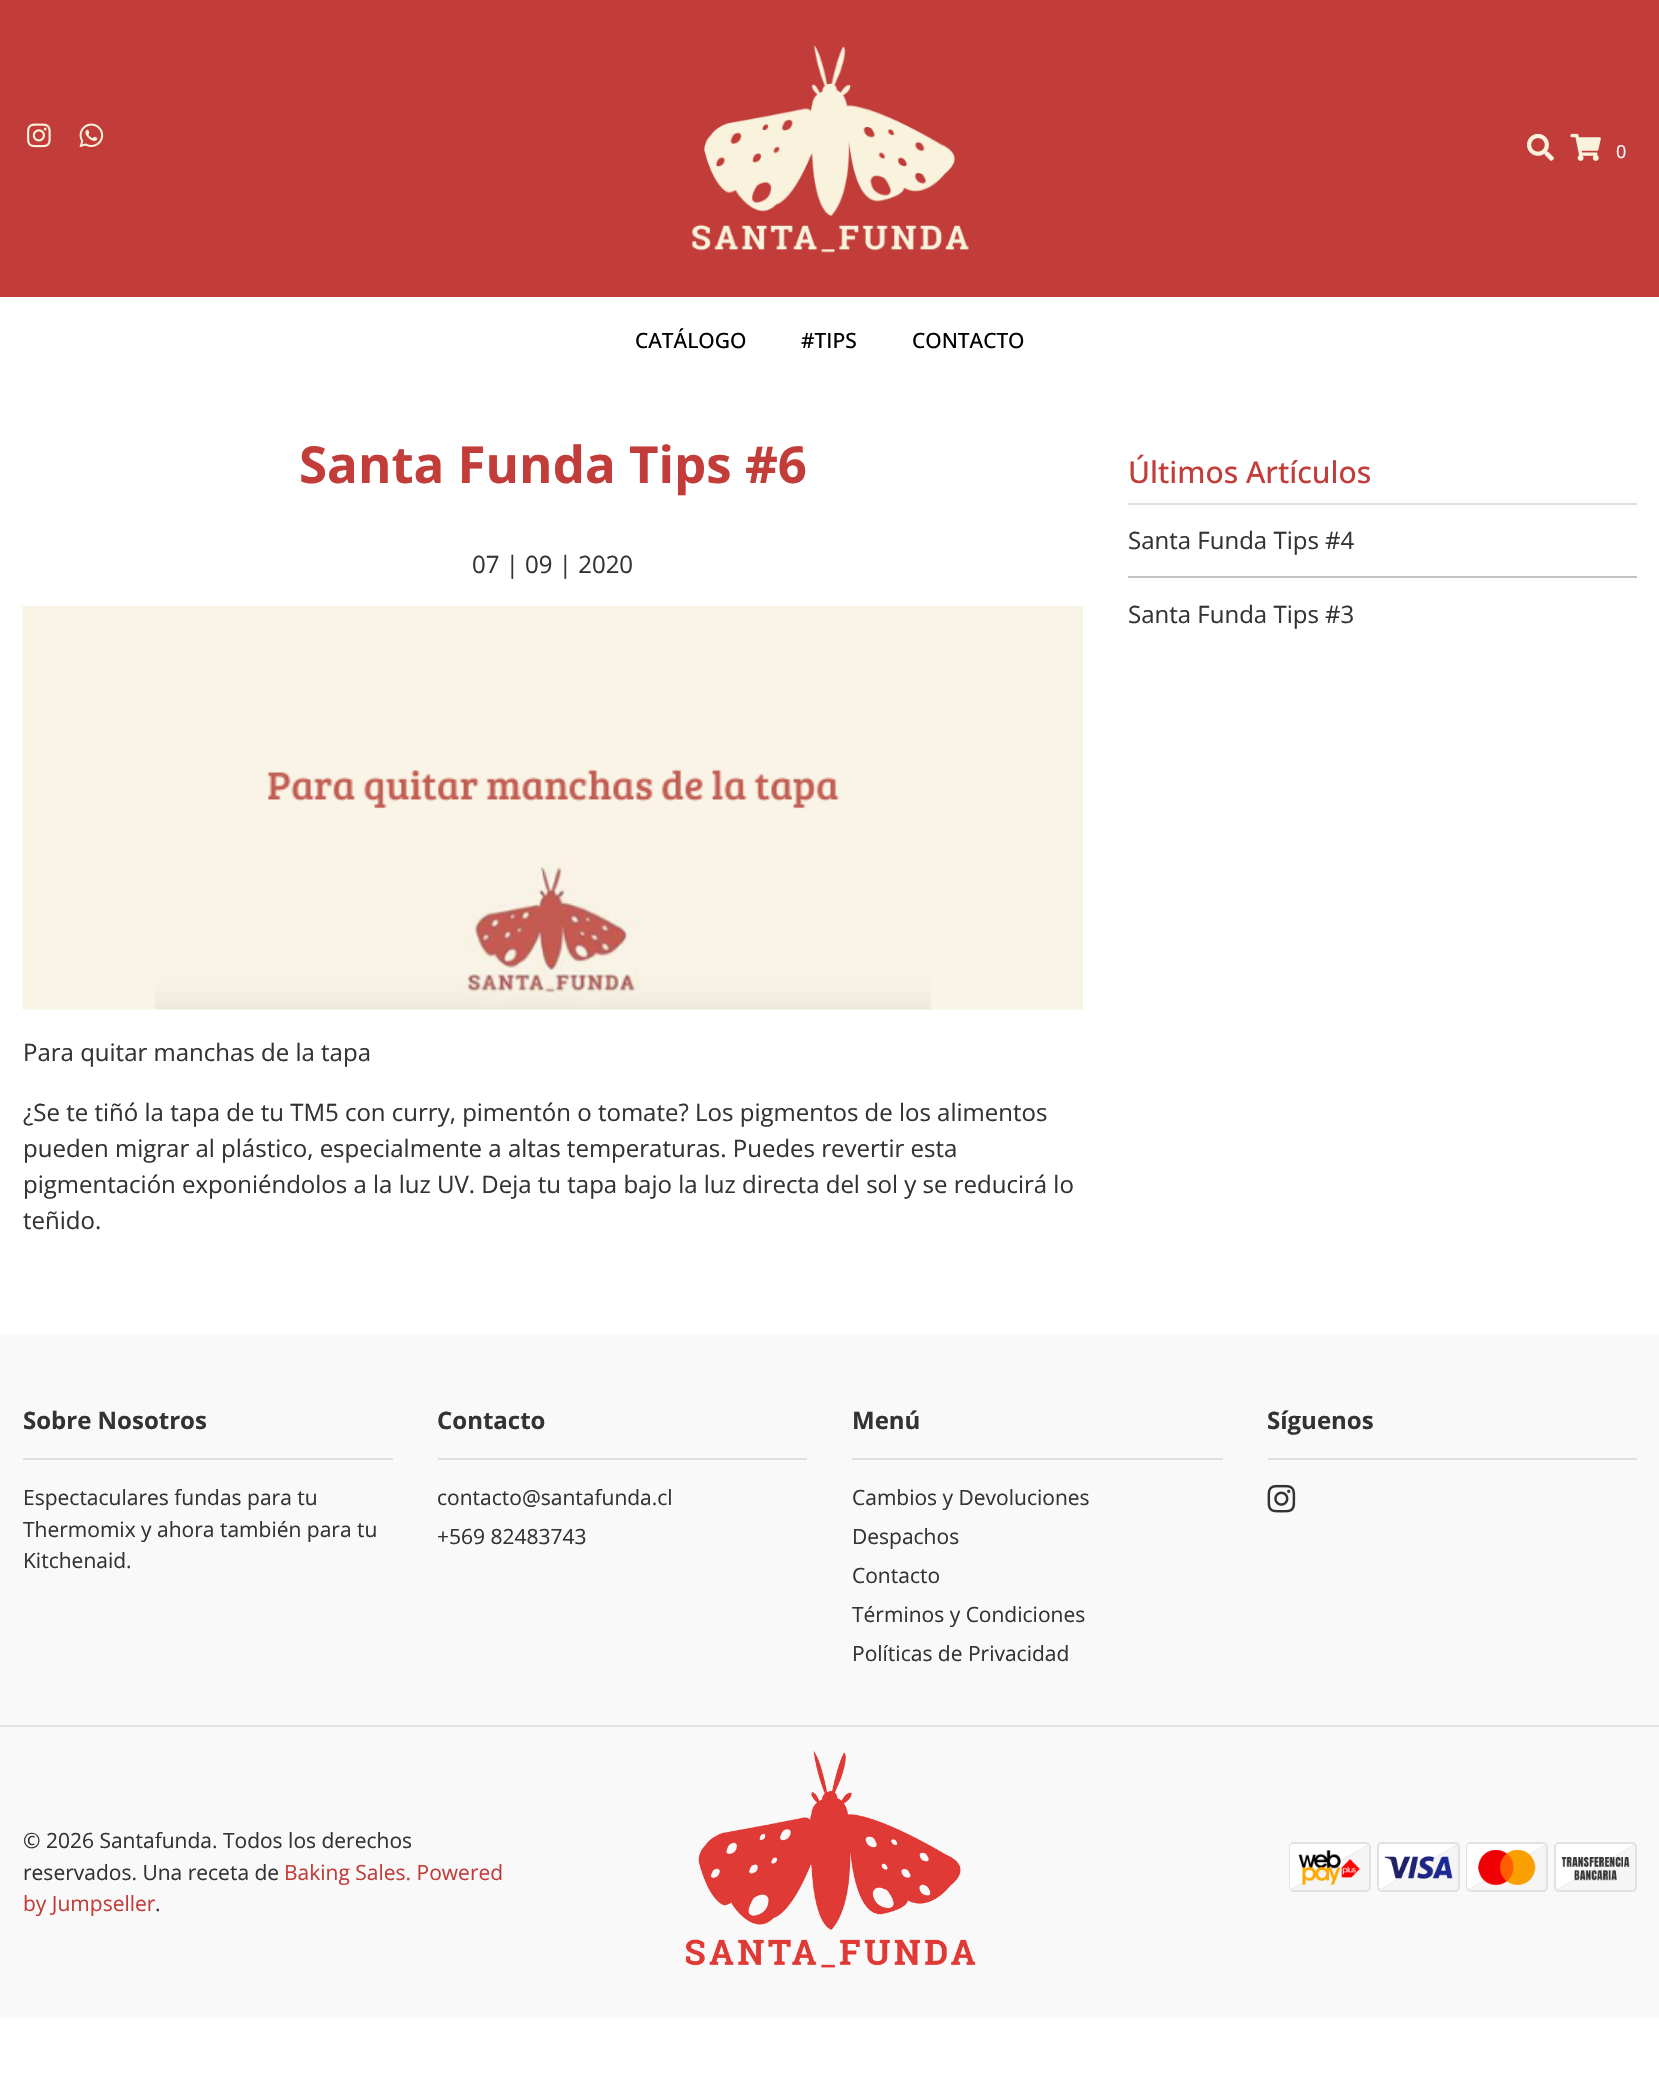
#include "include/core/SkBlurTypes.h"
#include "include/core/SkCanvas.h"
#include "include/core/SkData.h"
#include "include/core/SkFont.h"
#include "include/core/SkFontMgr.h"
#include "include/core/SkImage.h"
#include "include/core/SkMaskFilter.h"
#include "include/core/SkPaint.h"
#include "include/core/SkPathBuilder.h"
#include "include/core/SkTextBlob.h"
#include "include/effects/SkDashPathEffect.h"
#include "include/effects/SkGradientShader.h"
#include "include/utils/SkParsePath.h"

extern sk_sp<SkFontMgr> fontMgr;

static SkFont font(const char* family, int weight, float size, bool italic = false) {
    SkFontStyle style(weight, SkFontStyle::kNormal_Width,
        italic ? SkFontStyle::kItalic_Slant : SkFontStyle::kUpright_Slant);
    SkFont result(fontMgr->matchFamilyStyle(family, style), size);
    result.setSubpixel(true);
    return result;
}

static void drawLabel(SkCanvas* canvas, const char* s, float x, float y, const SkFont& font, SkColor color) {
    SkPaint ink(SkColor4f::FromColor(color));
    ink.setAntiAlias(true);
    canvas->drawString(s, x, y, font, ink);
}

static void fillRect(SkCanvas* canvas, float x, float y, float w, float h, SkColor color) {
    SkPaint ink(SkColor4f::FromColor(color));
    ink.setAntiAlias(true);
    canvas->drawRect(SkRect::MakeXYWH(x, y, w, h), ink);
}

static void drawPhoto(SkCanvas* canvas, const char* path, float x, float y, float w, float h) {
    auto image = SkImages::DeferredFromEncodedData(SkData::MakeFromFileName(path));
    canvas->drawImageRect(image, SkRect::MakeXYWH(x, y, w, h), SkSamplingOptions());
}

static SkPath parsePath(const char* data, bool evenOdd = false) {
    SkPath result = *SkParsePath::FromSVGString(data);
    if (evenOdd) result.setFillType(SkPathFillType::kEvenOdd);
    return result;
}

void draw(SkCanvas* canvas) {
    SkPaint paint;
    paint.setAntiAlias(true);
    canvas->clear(0xFFFFFFFF);
    fillRect(canvas, 0, 0, 1659, 297, 0xFFC23D39);
    drawPhoto(canvas, "assets/img1.png", 27, 123, 24, 25);
    drawPhoto(canvas, "assets/img2.png", 79, 123, 25, 25);
    drawPhoto(canvas, "assets/img3.png", 692, 45, 277, 208);
    drawPhoto(canvas, "assets/img4.png", 1527, 133, 27, 28);
    drawPhoto(canvas, "assets/img5.png", 1570, 133, 31, 28);
    SkFont font1 = font("Open Sans", 400, 18);
    drawLabel(canvas, "0", 1616, 158, font1, 0xFFFFFFFF);
    SkFont font2 = font("Open Sans", 500, 21);
    drawLabel(canvas, "CATÁLOGO", 635, 348, font2, 0xFF000000);
    drawLabel(canvas, "#TIPS", 801, 348, font2, 0xFF000000);
    drawLabel(canvas, "CONTACTO", 912, 348, font2, 0xFF000000);
    SkFont font3 = font("Open Sans", 700, 51);
    drawLabel(canvas, "Santa Funda Tips #6", 299, 483, font3, 0xFFC23D39);
    SkFont font4 = font("Open Sans", 400, 24);
    drawLabel(canvas, "07 | 09 | 2020", 472, 573, font4, 0xFF333333);
    drawPhoto(canvas, "assets/img6.png", 22, 606, 1061, 404);
    drawLabel(canvas, "Para quitar manchas de la tapa", 23, 1061, font4, 0xFF333333);
    drawLabel(canvas, "¿Se te tiñó la tapa de tu TM5 con curry, pimentón o tomate? Los pigmentos de los alimentos", 23, 1121, font4, 0xFF333333);
    drawLabel(canvas, "pueden migrar al plástico, especialmente a altas temperaturas. Puedes revertir esta", 23, 1157, font4, 0xFF333333);
    drawLabel(canvas, "pigmentación exponiéndolos a la luz UV. Deja tu tapa bajo la luz directa del sol y se reducirá lo", 23, 1193, font4, 0xFF333333);
    drawLabel(canvas, "teñido.", 23, 1229, font4, 0xFF333333);
    SkFont font5 = font("Open Sans", 500, 30);
    drawLabel(canvas, "Últimos Artículos", 1128, 483, font5, 0xFFC23D39);
    fillRect(canvas, 1128, 503, 509, 2, 0xFFDFDFDF);
    drawLabel(canvas, "Santa Funda Tips #4", 1128, 549, font4, 0xFF333333);
    fillRect(canvas, 1128, 576, 509, 2, 0xFFC3C3C3);
    drawLabel(canvas, "Santa Funda Tips #3", 1128, 623, font4, 0xFF333333);
    fillRect(canvas, 0, 1334, 1659, 684, 0xFFF9F9F9);
    fillRect(canvas, 23, 1458, 370, 2, 0xFFE0E0E0);
    SkFont font6 = font("Open Sans", 700, 24);
    drawLabel(canvas, "Sobre Nosotros", 23, 1429, font6, 0xFF333333);
    SkFont font7 = font("Open Sans", 400, 21);
    drawLabel(canvas, "Espectaculares fundas para tu", 23, 1505, font7, 0xFF333333);
    drawLabel(canvas, "Thermomix y ahora también para tu", 23, 1537, font7, 0xFF333333);
    drawLabel(canvas, "Kitchenaid.", 23, 1568, font7, 0xFF333333);
    fillRect(canvas, 438, 1458, 369, 2, 0xFFE0E0E0);
    drawLabel(canvas, "Contacto", 437, 1429, font6, 0xFF333333);
    drawLabel(canvas, "contacto@santafunda.cl", 437, 1505, font7, 0xFF333333);
    drawLabel(canvas, "+569 82483743", 437, 1544, font7, 0xFF333333);
    fillRect(canvas, 852, 1458, 371, 2, 0xFFE0E0E0);
    drawLabel(canvas, "Menú", 852, 1429, font6, 0xFF333333);
    drawLabel(canvas, "Cambios y Devoluciones", 852, 1505, font7, 0xFF333333);
    drawLabel(canvas, "Despachos", 852, 1544, font7, 0xFF333333);
    drawLabel(canvas, "Contacto", 852, 1583, font7, 0xFF333333);
    drawLabel(canvas, "Términos y Condiciones", 852, 1622, font7, 0xFF333333);
    drawLabel(canvas, "Políticas de Privacidad", 852, 1661, font7, 0xFF333333);
    fillRect(canvas, 1268, 1458, 369, 2, 0xFFE0E0E0);
    drawLabel(canvas, "Síguenos", 1267, 1429, font6, 0xFF333333);
    drawPhoto(canvas, "assets/img7.png", 1267, 1484, 29, 29);
    fillRect(canvas, 0, 1725, 1659, 2, 0xFFE0E0E0);
    drawLabel(canvas, "© 2026 Santafunda. Todos los derechos", 23, 1848, font7, 0xFF333333);
    drawLabel(canvas, "reservados. Una receta de", 23, 1880, font7, 0xFF333333);
    drawLabel(canvas, "Baking Sales. Powered", 284, 1880, font7, 0xFFC23D39);
    drawLabel(canvas, "by Jumpseller", 23, 1911, font7, 0xFFC23D39);
    drawLabel(canvas, ".", 155, 1911, font7, 0xFF333333);
    drawPhoto(canvas, "assets/img8.png", 686, 1751, 290, 217);
    paint.setColor(0xFFF5F5F5);
    canvas->drawRoundRect(SkRect::MakeXYWH(1290, 1843, 80, 48), 4, 4, paint);
    paint.setStroke(true);
    paint.setStrokeWidth(2);
    paint.setColor(0xFFE1E1E1);
    canvas->drawRoundRect(SkRect::MakeXYWH(1290, 1843, 80, 48), 4, 4, paint);
    paint.setStroke(false);
    paint.setColor(0xFFFFFFFF);
    canvas->drawPath(parsePath("M1293 1844H1367L1369 1845L1292 1890C1291 1889 1290 1888 1290 1887V1847C1290 1845 1291 1844 1293 1844Z"), paint);
    canvas->save();
    canvas->clipPath(parsePath("M1293 1844H1367C1368.5 1844 1370 1845.5 1370 1847V1887C1370 1888.5 1368.5 1890 1367 1890H1293C1291.5 1890 1290 1888.5 1290 1887V1847C1290 1845.5 1291.5 1844 1293 1844Z"), true);
    paint.setStroke(true);
    paint.setStrokeWidth(1.5f);
    paint.setColor(0xFFEEEEEE);
    canvas->drawPath(parsePath("M1316.5 1703.5L1390.5 1832L1262 1906.5L1188 1777.5Z"), paint);
    canvas->restore();
    drawPhoto(canvas, "assets/img9.png", 1298, 1850, 62, 36);
    paint.setStroke(false);
    paint.setColor(0xFFF5F5F5);
    canvas->drawRoundRect(SkRect::MakeXYWH(1378, 1843, 81, 48), 4, 4, paint);
    paint.setStroke(true);
    paint.setStrokeWidth(2);
    paint.setColor(0xFFE1E1E1);
    canvas->drawRoundRect(SkRect::MakeXYWH(1378, 1843, 81, 48), 4, 4, paint);
    paint.setStroke(false);
    paint.setColor(0xFFFFFFFF);
    canvas->drawPath(parsePath("M1382 1844H1455L1457 1845L1381 1890C1380 1889 1379 1888 1379 1887V1847C1379 1845 1380 1844 1382 1844Z"), paint);
    canvas->save();
    canvas->clipPath(parsePath("M1382 1844H1455C1456.5 1844 1458 1845.5 1458 1847V1887C1458 1888.5 1456.5 1890 1455 1890H1382C1380.5 1890 1379 1888.5 1379 1887V1847C1379 1845.5 1380.5 1844 1382 1844Z"), true);
    paint.setStroke(true);
    paint.setStrokeWidth(1.5f);
    paint.setColor(0xFFEEEEEE);
    canvas->drawPath(parsePath("M1405 1703.5L1479.5 1832L1351 1906.5L1276.5 1777.5Z"), paint);
    canvas->restore();
    drawPhoto(canvas, "assets/img10.png", 1384, 1856, 69, 23);
    paint.setStroke(false);
    paint.setColor(0xFFF5F5F5);
    canvas->drawRoundRect(SkRect::MakeXYWH(1467, 1843, 80, 48), 4, 4, paint);
    paint.setStroke(true);
    paint.setStrokeWidth(2);
    paint.setColor(0xFFE1E1E1);
    canvas->drawRoundRect(SkRect::MakeXYWH(1467, 1843, 80, 48), 4, 4, paint);
    paint.setStroke(false);
    paint.setColor(0xFFFFFFFF);
    canvas->drawPath(parsePath("M1470 1844H1544L1546 1845L1469 1890C1468 1889 1467 1888 1467 1887V1847C1467 1845 1468 1844 1470 1844Z"), paint);
    canvas->save();
    canvas->clipPath(parsePath("M1470 1844H1544C1545.5 1844 1547 1845.5 1547 1847V1887C1547 1888.5 1545.5 1890 1544 1890H1470C1468.5 1890 1467 1888.5 1467 1887V1847C1467 1845.5 1468.5 1844 1470 1844Z"), true);
    paint.setStroke(true);
    paint.setStrokeWidth(1.5f);
    paint.setColor(0xFFEEEEEE);
    canvas->drawPath(parsePath("M1494 1703.5L1568 1832L1439.5 1906.5L1365.5 1777.5Z"), paint);
    canvas->restore();
    drawPhoto(canvas, "assets/img11.png", 1478, 1850, 58, 36);
    paint.setStroke(false);
    paint.setColor(0xFFF5F5F5);
    canvas->drawRoundRect(SkRect::MakeXYWH(1555, 1843, 81, 48), 4, 4, paint);
    paint.setStroke(true);
    paint.setStrokeWidth(2);
    paint.setColor(0xFFE1E1E1);
    canvas->drawRoundRect(SkRect::MakeXYWH(1555, 1843, 81, 48), 4, 4, paint);
    paint.setStroke(false);
    paint.setColor(0xFFFFFFFF);
    canvas->drawPath(parsePath("M1559 1844H1632L1635 1846L1558 1890C1557 1889 1556 1888 1556 1887V1847C1556 1845 1557 1844 1559 1844Z"), paint);
    canvas->save();
    canvas->clipPath(parsePath("M1559 1844H1632C1633.5 1844 1635 1845.5 1635 1847V1887C1635 1888.5 1633.5 1890 1632 1890H1559C1557.5 1890 1556 1888.5 1556 1887V1847C1556 1845.5 1557.5 1844 1559 1844Z"), true);
    paint.setStroke(true);
    paint.setStrokeWidth(1.5f);
    paint.setColor(0xFFEEEEEE);
    canvas->drawPath(parsePath("M1582.5 1703.5L1657 1832L1528.5 1906.5L1454 1777.5Z"), paint);
    canvas->restore();
    drawPhoto(canvas, "assets/img12.png", 1561, 1856, 69, 25);
}
